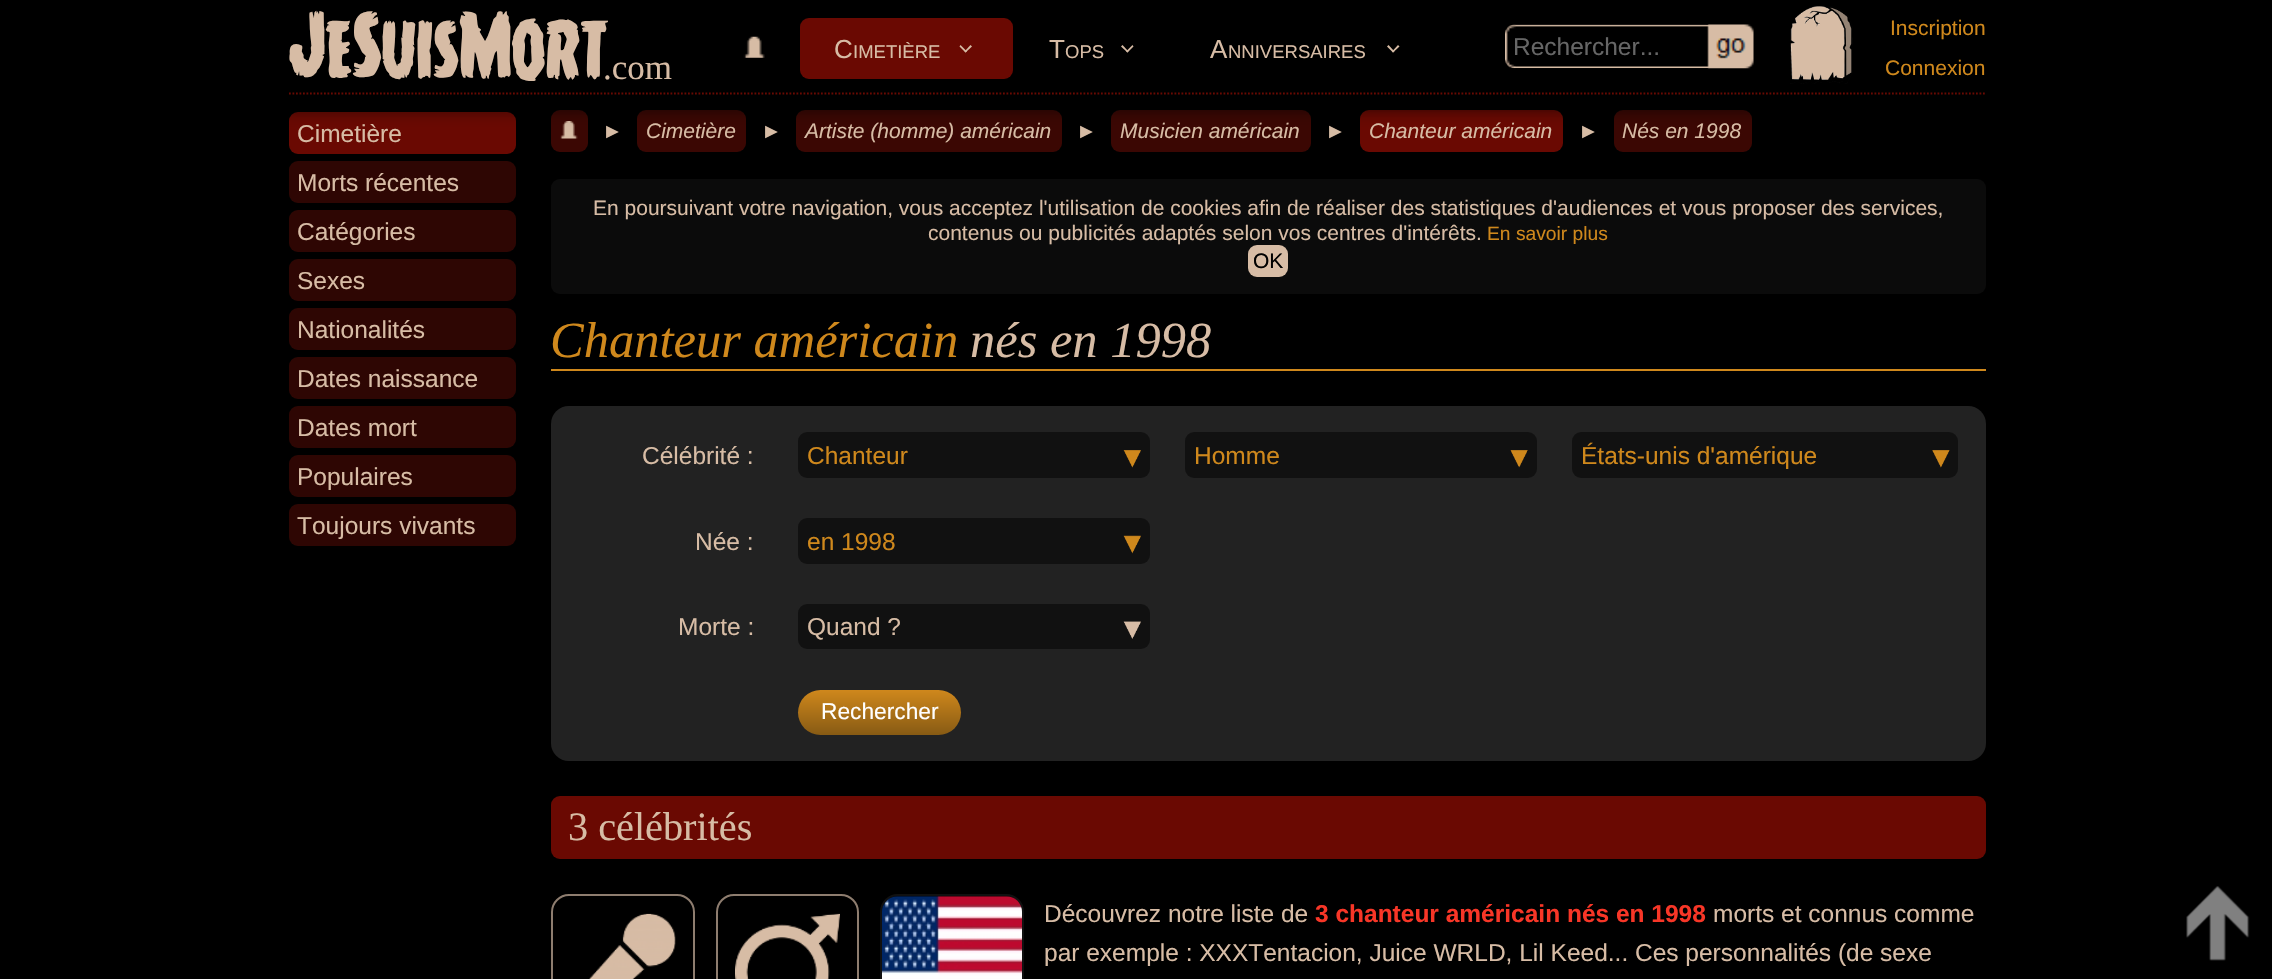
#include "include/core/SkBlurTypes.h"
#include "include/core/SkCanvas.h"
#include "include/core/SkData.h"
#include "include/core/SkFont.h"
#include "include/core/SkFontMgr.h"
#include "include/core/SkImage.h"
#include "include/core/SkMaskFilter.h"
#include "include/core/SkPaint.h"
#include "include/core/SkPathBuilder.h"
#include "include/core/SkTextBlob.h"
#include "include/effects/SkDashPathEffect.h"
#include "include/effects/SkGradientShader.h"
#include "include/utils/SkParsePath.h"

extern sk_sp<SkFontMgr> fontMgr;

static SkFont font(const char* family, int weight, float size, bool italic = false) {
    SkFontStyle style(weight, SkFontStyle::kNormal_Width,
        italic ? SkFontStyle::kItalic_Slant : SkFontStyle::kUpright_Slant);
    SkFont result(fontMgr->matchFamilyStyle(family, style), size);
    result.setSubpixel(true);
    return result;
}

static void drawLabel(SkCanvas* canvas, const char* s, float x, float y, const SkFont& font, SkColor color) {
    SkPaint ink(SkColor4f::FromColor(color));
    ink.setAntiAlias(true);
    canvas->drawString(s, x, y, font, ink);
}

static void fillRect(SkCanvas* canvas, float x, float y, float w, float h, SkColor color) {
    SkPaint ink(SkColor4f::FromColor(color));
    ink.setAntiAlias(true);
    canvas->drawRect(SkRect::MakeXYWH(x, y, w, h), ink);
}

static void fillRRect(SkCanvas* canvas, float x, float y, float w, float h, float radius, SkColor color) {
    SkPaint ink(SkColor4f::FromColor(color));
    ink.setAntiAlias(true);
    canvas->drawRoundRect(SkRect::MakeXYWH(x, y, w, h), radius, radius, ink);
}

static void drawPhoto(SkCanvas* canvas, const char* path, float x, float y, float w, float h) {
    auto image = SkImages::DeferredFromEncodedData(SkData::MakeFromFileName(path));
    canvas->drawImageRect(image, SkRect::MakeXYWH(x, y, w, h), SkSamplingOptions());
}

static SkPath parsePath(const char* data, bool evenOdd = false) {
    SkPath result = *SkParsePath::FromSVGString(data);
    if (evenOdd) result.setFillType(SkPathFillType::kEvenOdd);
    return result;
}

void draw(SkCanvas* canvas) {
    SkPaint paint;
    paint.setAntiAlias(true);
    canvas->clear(0xFF000000);
    fillRRect(canvas, 289, 112, 227, 42, 9, 0xFF6A0902);
    fillRRect(canvas, 551, 110, 37, 42, 9, 0xFF3B0703);
    drawPhoto(canvas, "assets/img5.png", 560, 121, 18, 18);
    fillRRect(canvas, 637, 110, 109, 42, 9, 0xFF3B0703);
    fillRRect(canvas, 796, 110, 266, 42, 9, 0xFF3B0703);
    fillRRect(canvas, 1111, 110, 200, 42, 9, 0xFF3B0703);
    fillRRect(canvas, 1360, 110, 203, 42, 9, 0xFF6A0902);
    fillRRect(canvas, 1614, 110, 138, 42, 9, 0xFF3B0703);
    canvas->save();
    canvas->clipPath(parsePath("M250 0H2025V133H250ZM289 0H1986V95H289Z", true), true);
    paint.setColor(0xFF000000);
    paint.setMaskFilter(SkMaskFilter::MakeBlur(kNormal_SkBlurStyle, 9));
    canvas->drawRect(SkRect::MakeXYWH(278, -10, 1719, 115), paint);
    paint.setMaskFilter(nullptr);
    canvas->restore();
    paint.setStroke(true);
    paint.setStrokeWidth(1.8f);
    paint.setColor(0xFF6A0902);
    paint.setPathEffect(SkDashPathEffect::Make({{1.75f, 1.75f}}, 0));
    canvas->drawPath(parsePath("M289 93.5H1986"), paint);
    paint.setPathEffect(nullptr);
    SkFont font1 = font("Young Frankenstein", 400, 91);
    drawLabel(canvas, "JeSuisMort", 288, 81, font1, 0xFFD7BCA5);
    SkFont font2 = font("Liberation Serif", 400, 35);
    drawLabel(canvas, ".com", 603, 79, font2, 0xFFD7BCA5);
    drawPhoto(canvas, "assets/img1.png", 743, 36, 22, 22);
    fillRRect(canvas, 800, 18, 213, 61, 9, 0xFF6A0902);
    SkFont font3 = font("Liberation Sans", 400, 26);
    drawLabel(canvas, "C", 834, 58, font3, 0xFFD7BCA5);
    SkFont font4 = font("Liberation Sans", 400, 18.5f);
    drawLabel(canvas, "IMETIÈRE", 853, 58, font4, 0xFFD7BCA5);
    paint.setStroke(false);
    paint.setColor(0xFFD7BCA5);
    canvas->drawPath(parsePath("M970.5 45L972 46.5L965.5 52.5L964.5 51.5Z"), paint);
    canvas->drawPath(parsePath("M960.5 45L967 51.5L965.5 52.5L959.5 46.5Z"), paint);
    drawLabel(canvas, "T", 1049, 58, font3, 0xFFD7BCA5);
    drawLabel(canvas, "OPS", 1065, 58, font4, 0xFFD7BCA5);
    canvas->drawPath(parsePath("M1132.5 45L1133.5 46.5L1127.5 52.5L1126 51.5Z"), paint);
    canvas->drawPath(parsePath("M1122.5 45L1128.5 51.5L1127.5 52.5L1121 46.5Z"), paint);
    drawLabel(canvas, "A", 1210, 58, font3, 0xFFD7BCA5);
    drawLabel(canvas, "NNIVERSAIRES", 1228, 58, font4, 0xFFD7BCA5);
    canvas->drawPath(parsePath("M1398 45L1399.5 46.5L1393 52.5L1392 51.5Z"), paint);
    canvas->drawPath(parsePath("M1388.5 45L1394.5 51.5L1393 52.5L1387 46.5Z"), paint);
    drawPhoto(canvas, "assets/img2.png", 1505, 24, 204, 45);
    SkFont font5 = font("Liberation Sans", 400, 24.5f);
    drawLabel(canvas, "Rechercher...", 1513, 55, font5, 0xFF666666);
    drawPhoto(canvas, "assets/img3.png", 1707, 24, 47, 45);
    drawPhoto(canvas, "assets/img4.png", 1790, 6, 63, 78);
    SkFont font6 = font("Liberation Sans", 400, 21);
    drawLabel(canvas, "Inscription", 1890, 35, font6, 0xFFCF881C);
    drawLabel(canvas, "Connexion", 1885, 75, font6, 0xFFCF881C);
    drawLabel(canvas, "Cimetière", 297, 142, font5, 0xFFD7BCA5);
    fillRRect(canvas, 289, 161, 227, 42, 9, 0xFF2E0603);
    drawLabel(canvas, "Morts récentes", 297, 191, font5, 0xFFD7BCA5);
    fillRRect(canvas, 289, 210, 227, 42, 9, 0xFF2E0603);
    drawLabel(canvas, "Catégories", 297, 240, font5, 0xFFD7BCA5);
    fillRRect(canvas, 289, 259, 227, 42, 9, 0xFF2E0603);
    drawLabel(canvas, "Sexes", 297, 289, font5, 0xFFD7BCA5);
    fillRRect(canvas, 289, 308, 227, 42, 9, 0xFF2E0603);
    drawLabel(canvas, "Nationalités", 297, 338, font5, 0xFFD7BCA5);
    fillRRect(canvas, 289, 357, 227, 42, 9, 0xFF2E0603);
    drawLabel(canvas, "Dates naissance", 297, 387, font5, 0xFFD7BCA5);
    fillRRect(canvas, 289, 406, 227, 42, 9, 0xFF2E0603);
    drawLabel(canvas, "Dates mort", 297, 436, font5, 0xFFD7BCA5);
    fillRRect(canvas, 289, 455, 227, 42, 9, 0xFF2E0603);
    drawLabel(canvas, "Populaires", 297, 485, font5, 0xFFD7BCA5);
    fillRRect(canvas, 289, 504, 227, 42, 9, 0xFF2E0603);
    drawLabel(canvas, "Toujours vivants", 297, 534, font5, 0xFFD7BCA5);
    drawLabel(canvas, "►", 602, 138, font6, 0xFFD7BCA5);
    SkFont font7 = font("Liberation Sans", 400, 21, true);
    drawLabel(canvas, "Cimetière", 646, 138, font7, 0xFFD7BCA5);
    drawLabel(canvas, "►", 761, 138, font6, 0xFFD7BCA5);
    drawLabel(canvas, "Artiste (homme) américain", 805, 138, font7, 0xFFD7BCA5);
    drawLabel(canvas, "►", 1076, 138, font6, 0xFFD7BCA5);
    drawLabel(canvas, "Musicien américain", 1120, 138, font7, 0xFFD7BCA5);
    drawLabel(canvas, "►", 1325, 138, font6, 0xFFD7BCA5);
    drawLabel(canvas, "Chanteur américain", 1369, 138, font7, 0xFFD7BCA5);
    drawLabel(canvas, "►", 1578, 138, font6, 0xFFD7BCA5);
    drawLabel(canvas, "Nés en 1998", 1622, 138, font7, 0xFFD7BCA5);
    fillRRect(canvas, 551, 179, 1435, 115, 9, 0xFF0B0B0B);
    drawLabel(canvas, "En poursuivant votre navigation, vous acceptez l'utilisation de cookies afin de réaliser des statistiques d'audiences et vous proposer des services,", 593, 215, font6, 0xFFD7BCA5);
    drawLabel(canvas, "contenus ou publicités adaptés selon vos centres d'intérêts.", 928, 240, font6, 0xFFD7BCA5);
    SkFont font8 = font("Liberation Sans", 400, 19.25f);
    drawLabel(canvas, "En savoir plus", 1487, 240, font8, 0xFFCF881C);
    fillRRect(canvas, 1248, 245, 40, 32, 9, 0xFFD7BCA5);
    drawLabel(canvas, "OK", 1253, 268, font6, 0xFF000000);
    fillRect(canvas, 551, 369, 1435, 2, 0xFFCF881C);
    SkFont font9 = font("Liberation Serif", 400, 50.5f, true);
    drawLabel(canvas, "Chanteur américain", 550, 357, font9, 0xFFCF881C);
    drawLabel(canvas, "nés en 1998", 970, 357, font9, 0xFFD7BCA5);
    fillRRect(canvas, 551, 406, 1435, 355, 18, 0xFF222222);
    drawLabel(canvas, "Célébrité :", 642, 464, font5, 0xFFD7BCA5);
    fillRRect(canvas, 798, 432, 352, 46, 9, 0xFF111111);
    drawPhoto(canvas, "assets/img6.png", 1123, 450, 18, 18);
    drawLabel(canvas, "Chanteur", 807, 464, font5, 0xFFCF881C);
    fillRRect(canvas, 1185, 432, 352, 46, 9, 0xFF111111);
    drawPhoto(canvas, "assets/img7.png", 1510, 450, 18, 18);
    drawLabel(canvas, "Homme", 1194, 464, font5, 0xFFCF881C);
    fillRRect(canvas, 1572, 432, 386, 46, 9, 0xFF111111);
    drawPhoto(canvas, "assets/img8.png", 1932, 450, 18, 18);
    drawLabel(canvas, "États-unis d'amérique", 1581, 464, font5, 0xFFCF881C);
    drawLabel(canvas, "Née :", 695, 550, font5, 0xFFD7BCA5);
    fillRRect(canvas, 798, 518, 352, 46, 9, 0xFF111111);
    drawPhoto(canvas, "assets/img9.png", 1123, 535, 18, 19);
    drawLabel(canvas, "en 1998", 807, 550, font5, 0xFFCF881C);
    drawLabel(canvas, "Morte :", 678, 635, font5, 0xFFD7BCA5);
    fillRRect(canvas, 798, 604, 352, 45, 9, 0xFF111111);
    drawPhoto(canvas, "assets/img10.png", 1123, 621, 18, 18);
    drawLabel(canvas, "Quand ?", 807, 635, font5, 0xFFD7BCA5);
    {
        const SkColor colors[] = {0xFFCF881C, 0xFF875A14};
        const float stops[] = {0, 1};
        const SkPoint ends[] = {{879, 690}, {879, 735}};
        paint.setShader(SkGradientShader::MakeLinear(ends, colors, stops, 2, SkTileMode::kClamp));
        paint.setAlpha(255);
    }
    canvas->drawRoundRect(SkRect::MakeXYWH(798, 690, 163, 45), 22.5f, 22.5f, paint);
    SkFont font10 = font("Liberation Sans", 400, 22.75f);
    drawLabel(canvas, "Rechercher", 821, 719, font10, 0xFFFFFFFF);
    fillRRect(canvas, 551, 796, 1435, 63, 9, 0xFF6A0902);
    SkFont font11 = font("Liberation Serif", 400, 40.25f);
    drawLabel(canvas, "3 célébrités", 568, 840, font11, 0xFFD7BCA5);
    paint.setStroke(true);
    paint.setStrokeWidth(2);
    paint.setShader(nullptr);
    paint.setColor(0xFF8E7D6F);
    canvas->drawRoundRect(SkRect::MakeXYWH(552, 895, 142, 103), 17, 17, paint);
    drawPhoto(canvas, "assets/img11.png", 589, 913, 87, 66);
    canvas->drawRoundRect(SkRect::MakeXYWH(717, 895, 141, 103), 17, 17, paint);
    drawPhoto(canvas, "assets/img12.png", 735, 913, 105, 66);
    paint.setColor(0xFF111111);
    canvas->drawRoundRect(SkRect::MakeXYWH(881, 895, 142, 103), 17, 17, paint);
    drawPhoto(canvas, "assets/img13.png", 882, 896, 140, 83);
    drawLabel(canvas, "Découvrez notre liste de", 1044, 922, font5, 0xFFD7BCA5);
    SkFont font12 = font("Liberation Sans", 700, 24.5f);
    drawLabel(canvas, "3 chanteur américain nés en 1998", 1315, 922, font12, 0xFFF83627);
    drawLabel(canvas, "morts et connus comme", 1713, 922, font5, 0xFFD7BCA5);
    drawLabel(canvas, "par exemple : XXXTentacion, Juice WRLD, Lil Keed... Ces personnalités (de sexe", 1044, 961, font5, 0xFFD7BCA5);
    drawPhoto(canvas, "assets/img14.png", 2186, 886, 64, 75);
}
